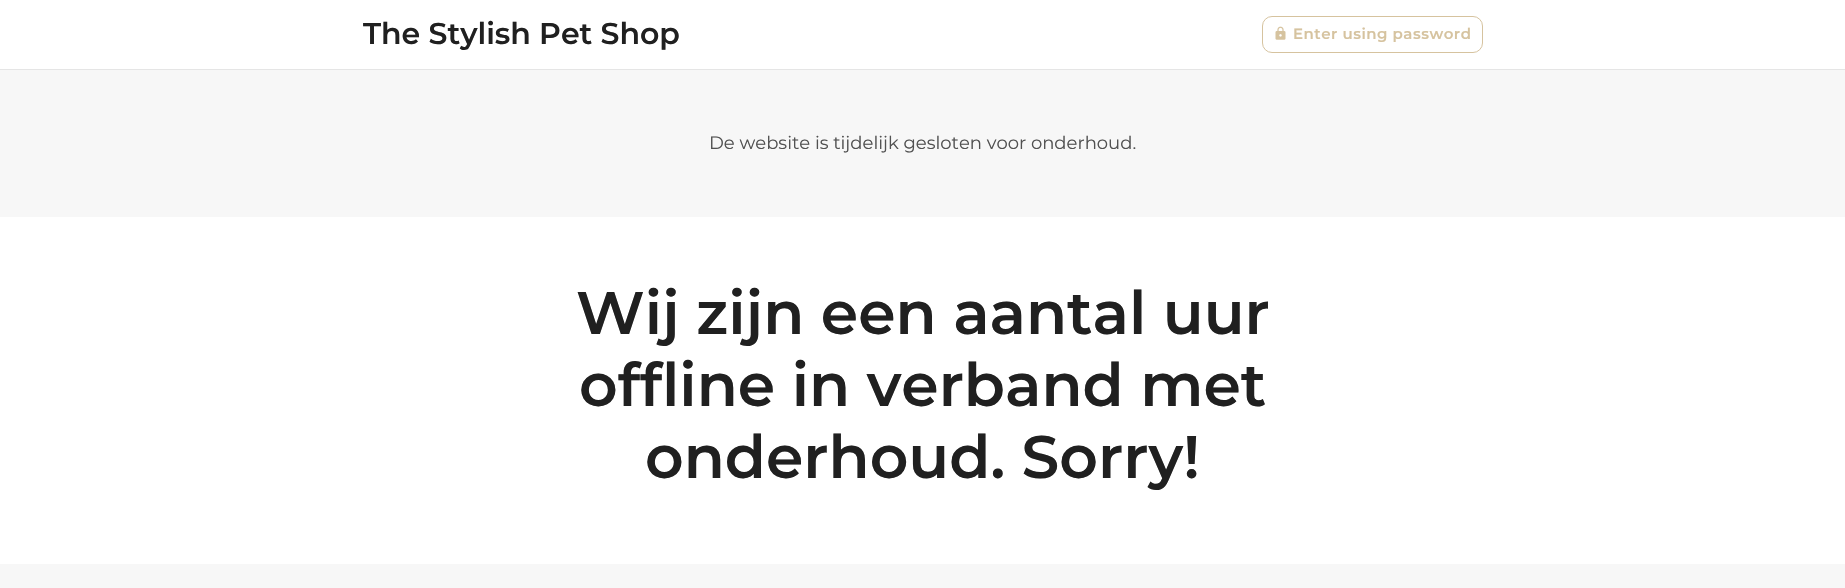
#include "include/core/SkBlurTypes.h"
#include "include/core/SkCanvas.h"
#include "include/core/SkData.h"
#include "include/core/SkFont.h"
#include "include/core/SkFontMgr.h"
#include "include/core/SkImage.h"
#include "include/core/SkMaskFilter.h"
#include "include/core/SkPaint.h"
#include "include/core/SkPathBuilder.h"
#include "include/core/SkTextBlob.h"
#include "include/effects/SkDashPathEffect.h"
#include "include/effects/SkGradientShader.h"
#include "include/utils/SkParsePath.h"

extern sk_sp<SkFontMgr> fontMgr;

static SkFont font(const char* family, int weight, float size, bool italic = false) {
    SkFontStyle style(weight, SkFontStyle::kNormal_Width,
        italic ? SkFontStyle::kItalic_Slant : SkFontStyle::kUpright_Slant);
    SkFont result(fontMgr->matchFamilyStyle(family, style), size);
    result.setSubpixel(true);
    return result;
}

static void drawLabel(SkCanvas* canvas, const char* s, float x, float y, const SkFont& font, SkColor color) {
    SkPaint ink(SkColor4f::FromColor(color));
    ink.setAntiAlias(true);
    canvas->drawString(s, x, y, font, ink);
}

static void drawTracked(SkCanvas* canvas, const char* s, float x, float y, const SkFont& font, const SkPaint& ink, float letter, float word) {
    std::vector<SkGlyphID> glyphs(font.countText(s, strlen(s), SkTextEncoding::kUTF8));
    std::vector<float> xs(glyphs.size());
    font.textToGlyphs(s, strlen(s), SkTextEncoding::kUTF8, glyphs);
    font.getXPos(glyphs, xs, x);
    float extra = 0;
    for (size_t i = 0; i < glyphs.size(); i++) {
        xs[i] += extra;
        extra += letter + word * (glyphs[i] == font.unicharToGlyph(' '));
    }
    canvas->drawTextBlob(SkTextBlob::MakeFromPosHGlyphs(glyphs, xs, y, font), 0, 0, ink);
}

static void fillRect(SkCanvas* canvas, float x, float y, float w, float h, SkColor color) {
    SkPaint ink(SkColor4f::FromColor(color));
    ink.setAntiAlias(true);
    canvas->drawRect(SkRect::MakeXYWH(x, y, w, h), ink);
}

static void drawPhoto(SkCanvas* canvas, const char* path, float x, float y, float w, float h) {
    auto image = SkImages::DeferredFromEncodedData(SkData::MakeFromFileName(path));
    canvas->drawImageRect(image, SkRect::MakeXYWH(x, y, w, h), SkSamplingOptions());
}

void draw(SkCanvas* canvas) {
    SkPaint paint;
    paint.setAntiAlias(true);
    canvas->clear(0xFFFFFFFF);
    fillRect(canvas, 0, 69, 1845, 1, 0xFFE5E5E5);
    SkFont font1 = font("Montserrat", 600, 30);
    drawLabel(canvas, "The Stylish Pet Shop", 363, 44, font1, 0xFF202020);
    paint.setStroke(true);
    paint.setStrokeWidth(1);
    paint.setColor(0xFFD6C39F);
    canvas->drawRoundRect(SkRect::MakeXYWH(1262.5f, 16.5f, 220, 36), 9.5f, 9.5f, paint);
    drawPhoto(canvas, "assets/img1.png", 1275, 26, 11, 14);
    SkFont font2 = font("Montserrat", 600, 15);
    paint.setStroke(false);
    drawTracked(canvas, "Enter using password", 1293, 39, font2, paint, 0.5f, 0);
    fillRect(canvas, 0, 70, 1845, 147, 0xFFF7F7F7);
    SkFont font3 = font("Montserrat", 400, 18);
    drawLabel(canvas, "De website is tijdelijk gesloten voor onderhoud.", 709, 149, font3, 0xFF515151);
    SkFont font4 = font("Montserrat", 600, 60);
    drawLabel(canvas, "Wij zijn een aantal uur", 576, 334, font4, 0xFF202020);
    drawLabel(canvas, "offline in verband met", 579, 406, font4, 0xFF202020);
    drawLabel(canvas, "onderhoud. Sorry!", 645, 478, font4, 0xFF202020);
    fillRect(canvas, 0, 564, 1845, 24, 0xFFF7F7F7);
}
